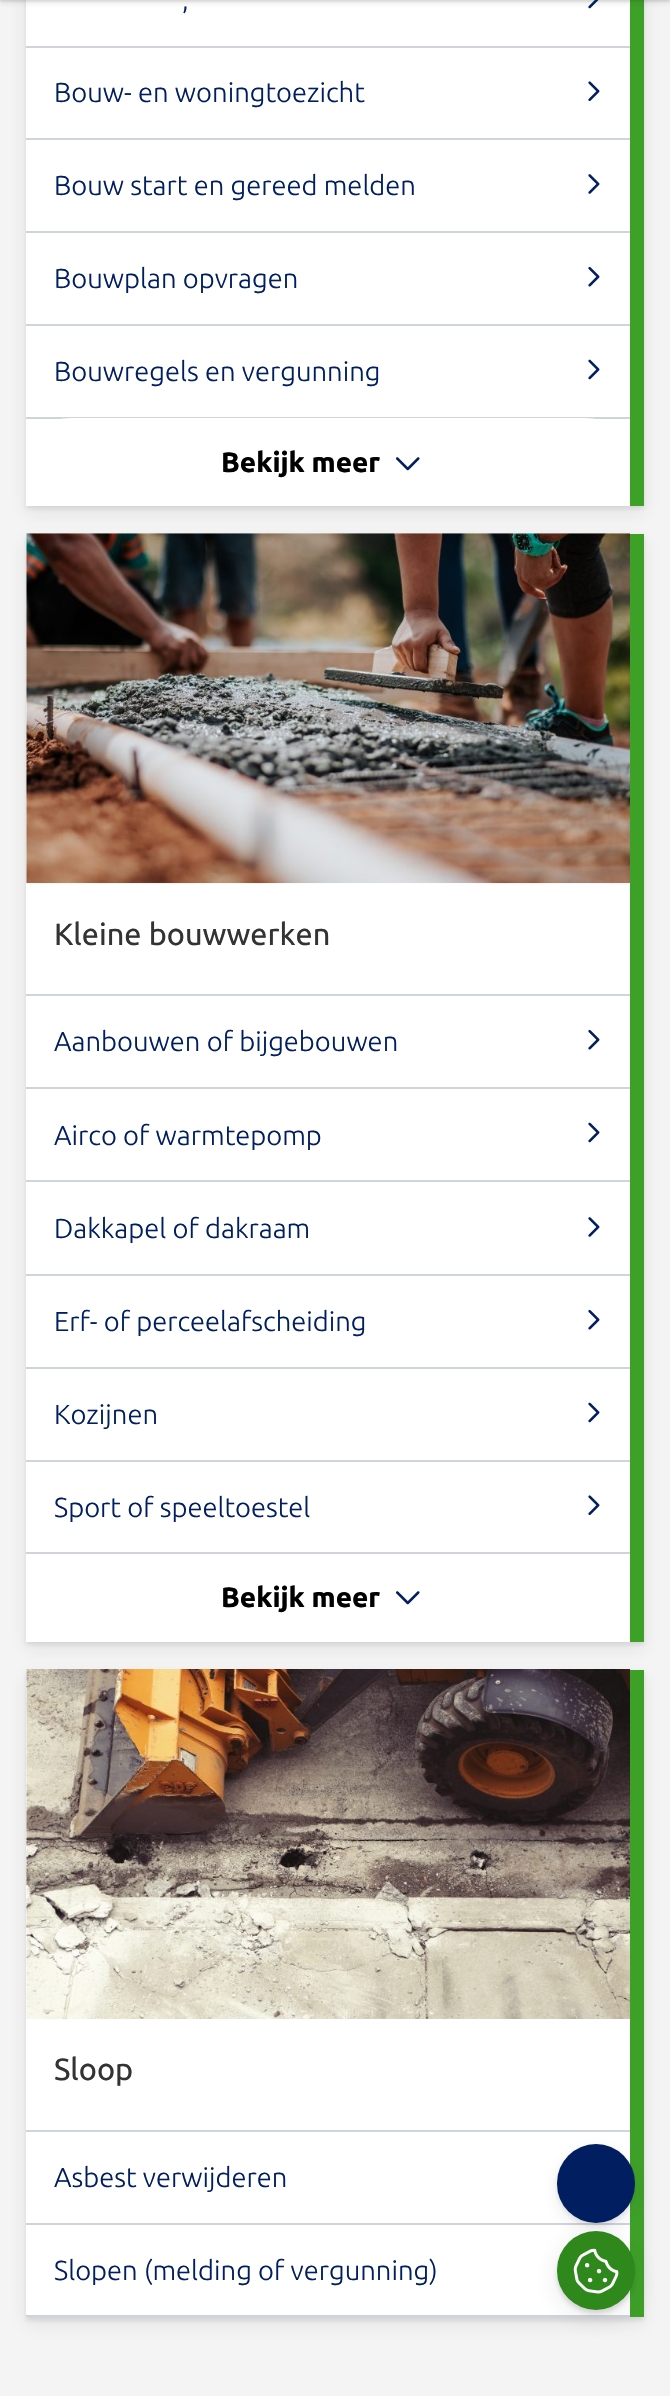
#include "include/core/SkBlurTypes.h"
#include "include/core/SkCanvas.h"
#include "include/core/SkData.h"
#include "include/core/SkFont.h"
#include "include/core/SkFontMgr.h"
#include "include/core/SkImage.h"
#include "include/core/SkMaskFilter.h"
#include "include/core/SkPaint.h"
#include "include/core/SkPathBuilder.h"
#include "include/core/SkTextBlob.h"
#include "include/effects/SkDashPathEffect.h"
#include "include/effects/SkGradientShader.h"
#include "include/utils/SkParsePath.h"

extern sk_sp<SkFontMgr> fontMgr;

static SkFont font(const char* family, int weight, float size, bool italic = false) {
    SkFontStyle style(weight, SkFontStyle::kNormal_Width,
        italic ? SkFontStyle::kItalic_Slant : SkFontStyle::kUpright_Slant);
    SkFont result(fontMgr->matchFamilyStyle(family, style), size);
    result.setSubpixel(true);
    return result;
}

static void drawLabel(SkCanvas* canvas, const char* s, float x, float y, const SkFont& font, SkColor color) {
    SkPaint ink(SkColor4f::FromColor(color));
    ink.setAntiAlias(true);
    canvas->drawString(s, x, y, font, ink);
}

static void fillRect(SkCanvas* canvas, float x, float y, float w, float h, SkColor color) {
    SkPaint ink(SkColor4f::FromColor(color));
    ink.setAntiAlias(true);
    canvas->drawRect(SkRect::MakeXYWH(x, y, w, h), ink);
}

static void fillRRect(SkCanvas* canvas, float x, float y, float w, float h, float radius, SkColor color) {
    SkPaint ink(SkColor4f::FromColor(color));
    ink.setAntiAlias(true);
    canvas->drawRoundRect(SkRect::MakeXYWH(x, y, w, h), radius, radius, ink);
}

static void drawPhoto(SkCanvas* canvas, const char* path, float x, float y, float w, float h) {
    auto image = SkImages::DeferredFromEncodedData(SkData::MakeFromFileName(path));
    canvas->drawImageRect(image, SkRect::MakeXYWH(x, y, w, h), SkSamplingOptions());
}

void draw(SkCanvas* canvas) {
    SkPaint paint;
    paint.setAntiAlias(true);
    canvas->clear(0xFFF4F4F4);
    paint.setColor(0x1A282C35);
    paint.setMaskFilter(SkMaskFilter::MakeBlur(kNormal_SkBlurStyle, 2));
    canvas->drawRect(SkRect::MakeXYWH(26, -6, 618, 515), paint);
    paint.setMaskFilter(nullptr);
    paint.setColor(0x14282C35);
    paint.setMaskFilter(SkMaskFilter::MakeBlur(kNormal_SkBlurStyle, 9));
    canvas->drawRect(SkRect::MakeXYWH(26, -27, 618, 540), paint);
    paint.setMaskFilter(nullptr);
    fillRect(canvas, 26, 0, 604, 506, 0xFFFFFFFF);
    fillRect(canvas, 630, 0, 14, 506, 0xFF3DA027);
    drawPhoto(canvas, "assets/img1.png", 588, 0, 11, 9);
    paint.setColor(0x1A282C35);
    paint.setMaskFilter(SkMaskFilter::MakeBlur(kNormal_SkBlurStyle, 1));
    canvas->drawRect(SkRect::MakeXYWH(0, -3, 670, 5), paint);
    paint.setMaskFilter(nullptr);
    paint.setColor(0x14282C35);
    paint.setMaskFilter(SkMaskFilter::MakeBlur(kNormal_SkBlurStyle, 2.5f));
    canvas->drawRect(SkRect::MakeXYWH(0, -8, 670, 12), paint);
    paint.setMaskFilter(nullptr);
    fillRect(canvas, 26, 46, 604, 2, 0xFFCED4DA);
    SkFont font1 = font("Ubuntu", 300, 27.4f);
    drawLabel(canvas, ",", 182, 9, font1, 0xFF001E60);
    fillRect(canvas, 26, 138, 604, 2, 0xFFCED4DA);
    drawLabel(canvas, "Bouw- en woningtoezicht", 54, 102, font1, 0xFF001E60);
    drawPhoto(canvas, "assets/img2.png", 588, 81, 12, 21);
    fillRect(canvas, 26, 231, 604, 2, 0xFFCED4DA);
    drawLabel(canvas, "Bouw start en gereed melden", 54, 195, font1, 0xFF001E60);
    drawPhoto(canvas, "assets/img3.png", 588, 174, 12, 20);
    fillRect(canvas, 26, 324, 604, 2, 0xFFCED4DA);
    drawLabel(canvas, "Bouwplan opvragen", 54, 288, font1, 0xFF001E60);
    drawPhoto(canvas, "assets/img4.png", 588, 266, 12, 21);
    fillRect(canvas, 26, 417, 604, 2, 0xFFCED4DA);
    drawLabel(canvas, "Bouwregels en vergunning", 54, 381, font1, 0xFF001E60);
    drawPhoto(canvas, "assets/img5.png", 588, 359, 12, 21);
    fillRRect(canvas, 26, 418, 604, 88, 44, 0xFFFFFFFF);
    SkFont font2 = font("Ubuntu", 700, 28);
    drawLabel(canvas, "Bekijk meer", 221, 472, font2, 0xFF000000);
    drawPhoto(canvas, "assets/img6.png", 395, 457, 25, 14);
    paint.setColor(0x1A282C35);
    paint.setMaskFilter(SkMaskFilter::MakeBlur(kNormal_SkBlurStyle, 2));
    canvas->drawRect(SkRect::MakeXYWH(26, 537, 618, 1108), paint);
    paint.setMaskFilter(nullptr);
    paint.setColor(0x14282C35);
    paint.setMaskFilter(SkMaskFilter::MakeBlur(kNormal_SkBlurStyle, 9));
    canvas->drawRect(SkRect::MakeXYWH(26, 541, 618, 1108), paint);
    paint.setMaskFilter(nullptr);
    fillRect(canvas, 26, 534, 604, 1108, 0xFFFFFFFF);
    fillRect(canvas, 630, 534, 14, 1108, 0xFF3DA027);
    drawPhoto(canvas, "assets/img7.png", 26, 533, 604, 351);
    SkFont font3 = font("Ubuntu", 400, 30.75f);
    drawLabel(canvas, "Kleine bouwwerken", 54, 945, font3, 0xFF333333);
    fillRect(canvas, 26, 994, 604, 2, 0xFFCED4DA);
    fillRect(canvas, 26, 1087, 604, 2, 0xFFCED4DA);
    drawLabel(canvas, "Aanbouwen of bijgebouwen", 54, 1051, font1, 0xFF001E60);
    drawPhoto(canvas, "assets/img4.png", 588, 1029, 12, 21);
    fillRect(canvas, 26, 1180, 604, 2, 0xFFCED4DA);
    drawLabel(canvas, "Airco of warmtepomp", 54, 1145, font1, 0xFF001E60);
    drawPhoto(canvas, "assets/img5.png", 588, 1122, 12, 21);
    fillRect(canvas, 26, 1274, 604, 2, 0xFFCED4DA);
    drawLabel(canvas, "Dakkapel of dakraam", 54, 1238, font1, 0xFF001E60);
    drawPhoto(canvas, "assets/img3.png", 588, 1217, 12, 20);
    fillRect(canvas, 26, 1367, 604, 2, 0xFFCED4DA);
    drawLabel(canvas, "Erf- of perceelafscheiding", 54, 1331, font1, 0xFF001E60);
    drawPhoto(canvas, "assets/img4.png", 588, 1309, 12, 21);
    fillRect(canvas, 26, 1460, 604, 2, 0xFFCED4DA);
    drawLabel(canvas, "Kozijnen", 54, 1424, font1, 0xFF001E60);
    drawPhoto(canvas, "assets/img5.png", 588, 1402, 12, 21);
    fillRect(canvas, 26, 1552, 604, 2, 0xFFCED4DA);
    drawLabel(canvas, "Sport of speeltoestel", 54, 1517, font1, 0xFF001E60);
    drawPhoto(canvas, "assets/img2.png", 588, 1495, 12, 21);
    drawLabel(canvas, "Bekijk meer", 221, 1607, font2, 0xFF000000);
    drawPhoto(canvas, "assets/img6.png", 395, 1591, 25, 14);
    paint.setColor(0x1A282C35);
    paint.setMaskFilter(SkMaskFilter::MakeBlur(kNormal_SkBlurStyle, 2));
    canvas->drawRect(SkRect::MakeXYWH(26, 1673, 618, 648), paint);
    paint.setMaskFilter(nullptr);
    paint.setColor(0x14282C35);
    paint.setMaskFilter(SkMaskFilter::MakeBlur(kNormal_SkBlurStyle, 9));
    canvas->drawRect(SkRect::MakeXYWH(26, 1677, 618, 647), paint);
    paint.setMaskFilter(nullptr);
    fillRect(canvas, 26, 1670, 604, 645, 0xFFFFFFFF);
    fillRect(canvas, 630, 1670, 14, 647, 0xFF3DA027);
    drawPhoto(canvas, "assets/img8.png", 26, 1669, 604, 350);
    drawLabel(canvas, "Sloop", 54, 2080, font3, 0xFF333333);
    fillRect(canvas, 26, 2130, 604, 2, 0xFFCED4DA);
    fillRect(canvas, 26, 2223, 604, 2, 0xFFCED4DA);
    drawLabel(canvas, "Asbest verwijderen", 54, 2187, font1, 0xFF001E60);
    fillRect(canvas, 26, 2315, 604, 2, 0xFFCED4DA);
    drawLabel(canvas, "Slopen (melding of vergunning)", 54, 2280, font1, 0xFF001E60);
    paint.setColor(0x24282C35);
    paint.setMaskFilter(SkMaskFilter::MakeBlur(kNormal_SkBlurStyle, 2));
    canvas->drawRoundRect(SkRect::MakeXYWH(557, 2235, 78, 79), 39, 39, paint);
    paint.setMaskFilter(nullptr);
    paint.setColor(0x1A282C35);
    paint.setMaskFilter(SkMaskFilter::MakeBlur(kNormal_SkBlurStyle, 13));
    canvas->drawRoundRect(SkRect::MakeXYWH(557, 2238, 78, 79), 39, 39, paint);
    paint.setMaskFilter(nullptr);
    fillRRect(canvas, 557, 2231, 78, 79, 39, 0xFF2F881B);
    paint.setMaskFilter(SkMaskFilter::MakeBlur(kNormal_SkBlurStyle, 2));
    canvas->drawRoundRect(SkRect::MakeXYWH(557, 2147, 78, 79), 39, 39, paint);
    paint.setMaskFilter(nullptr);
    drawPhoto(canvas, "assets/img9.png", 573, 2248, 46, 46);
    paint.setColor(0x14282C35);
    paint.setMaskFilter(SkMaskFilter::MakeBlur(kNormal_SkBlurStyle, 9));
    canvas->drawRoundRect(SkRect::MakeXYWH(557, 2151, 78, 79), 39, 39, paint);
    paint.setMaskFilter(nullptr);
    fillRRect(canvas, 557, 2144, 78, 79, 39, 0xFF001E60);
}
